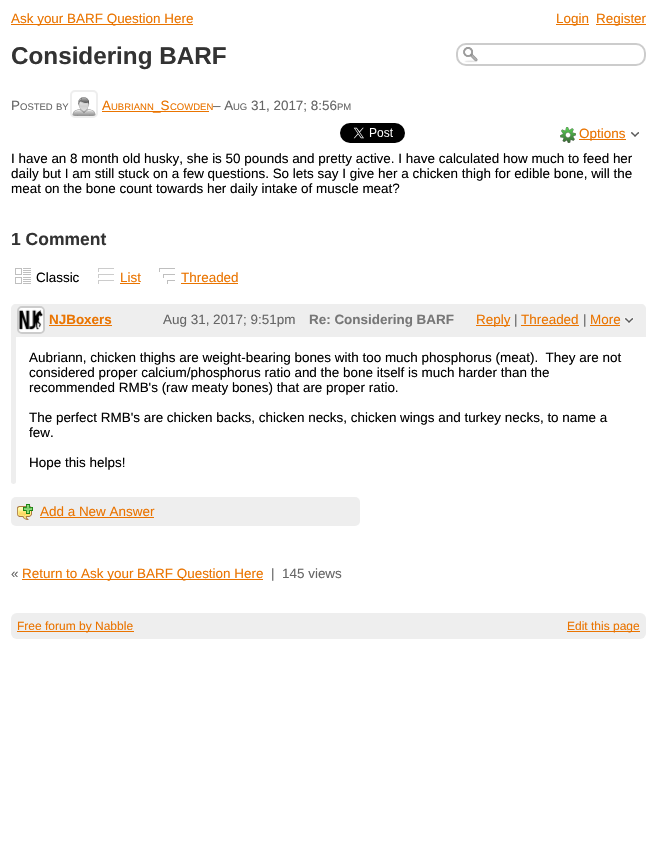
#include "include/core/SkBlurTypes.h"
#include "include/core/SkCanvas.h"
#include "include/core/SkData.h"
#include "include/core/SkFont.h"
#include "include/core/SkFontMgr.h"
#include "include/core/SkImage.h"
#include "include/core/SkMaskFilter.h"
#include "include/core/SkPaint.h"
#include "include/core/SkPathBuilder.h"
#include "include/core/SkTextBlob.h"
#include "include/effects/SkDashPathEffect.h"
#include "include/effects/SkGradientShader.h"
#include "include/utils/SkParsePath.h"

extern sk_sp<SkFontMgr> fontMgr;

static SkFont font(const char* family, int weight, float size, bool italic = false) {
    SkFontStyle style(weight, SkFontStyle::kNormal_Width,
        italic ? SkFontStyle::kItalic_Slant : SkFontStyle::kUpright_Slant);
    SkFont result(fontMgr->matchFamilyStyle(family, style), size);
    result.setSubpixel(true);
    return result;
}

static void drawLabel(SkCanvas* canvas, const char* s, float x, float y, const SkFont& font, SkColor color) {
    SkPaint ink(SkColor4f::FromColor(color));
    ink.setAntiAlias(true);
    canvas->drawString(s, x, y, font, ink);
}

static void fillRect(SkCanvas* canvas, float x, float y, float w, float h, SkColor color) {
    SkPaint ink(SkColor4f::FromColor(color));
    ink.setAntiAlias(true);
    canvas->drawRect(SkRect::MakeXYWH(x, y, w, h), ink);
}

static void fillRRect(SkCanvas* canvas, float x, float y, float w, float h, float radius, SkColor color) {
    SkPaint ink(SkColor4f::FromColor(color));
    ink.setAntiAlias(true);
    canvas->drawRoundRect(SkRect::MakeXYWH(x, y, w, h), radius, radius, ink);
}

static void drawPhoto(SkCanvas* canvas, const char* path, float x, float y, float w, float h) {
    auto image = SkImages::DeferredFromEncodedData(SkData::MakeFromFileName(path));
    canvas->drawImageRect(image, SkRect::MakeXYWH(x, y, w, h), SkSamplingOptions());
}

static SkPath parsePath(const char* data, bool evenOdd = false) {
    SkPath result = *SkParsePath::FromSVGString(data);
    if (evenOdd) result.setFillType(SkPathFillType::kEvenOdd);
    return result;
}

void draw(SkCanvas* canvas) {
    SkPaint paint;
    paint.setAntiAlias(true);
    canvas->clear(0xFFFFFFFF);
    fillRect(canvas, 11, 24, 182, 1, 0xFFEA7400);
    SkFont font1 = font("Liberation Sans", 400, 13.45f);
    drawLabel(canvas, "Ask your BARF Question Here", 11, 23, font1, 0xFFEA7400);
    fillRect(canvas, 556, 24, 33, 1, 0xFFEA7400);
    drawLabel(canvas, "Login", 556, 23, font1, 0xFFEA7400);
    fillRect(canvas, 596, 24, 50, 1, 0xFFEA7400);
    drawLabel(canvas, "Register", 596, 23, font1, 0xFFEA7400);
    SkFont font2 = font("Liberation Sans", 700, 24.25f);
    drawLabel(canvas, "Considering BARF", 11, 64, font2, 0xFF333333);
    drawPhoto(canvas, "assets/img1.png", 463, 47, 15, 16);
    paint.setStroke(true);
    paint.setStrokeWidth(2);
    paint.setColor(0xFFCCCCCC);
    canvas->drawRoundRect(SkRect::MakeXYWH(457, 44, 188, 21), 9, 9, paint);
    paint.setColor(0xFFEEEEEE);
    canvas->drawRoundRect(SkRect::MakeXYWH(71, 91, 26, 26), 4, 4, paint);
    drawLabel(canvas, "P", 11, 110, font1, 0xFF666666);
    SkFont font3 = font("Liberation Sans", 400, 9.5f);
    drawLabel(canvas, "OSTED", 20, 110, font3, 0xFF666666);
    drawLabel(canvas, "BY", 56, 110, font3, 0xFF666666);
    drawPhoto(canvas, "assets/img2.png", 72, 97, 24, 19);
    drawLabel(canvas, "A", 102, 110, font1, 0xFFEA7400);
    drawLabel(canvas, "UBRIANN", 111, 110, font3, 0xFFEA7400);
    fillRect(canvas, 102, 111, 107, 1, 0xFFEA7400);
    drawLabel(canvas, "_S", 153, 110, font1, 0xFFEA7400);
    drawLabel(canvas, "COWDEN", 170, 110, font3, 0xFFEA7400);
    drawLabel(canvas, "– A", 213, 110, font1, 0xFF666666);
    drawLabel(canvas, "UG", 233, 110, font3, 0xFF666666);
    drawLabel(canvas, "31, 2017; 8:56", 251, 110, font1, 0xFF666666);
    drawLabel(canvas, "PM", 337, 110, font3, 0xFF666666);
    drawPhoto(canvas, "assets/img3.png", 340, 123, 65, 20);
    drawPhoto(canvas, "assets/img4.png", 560, 127, 16, 16);
    fillRect(canvas, 579, 139, 47, 1, 0xFFEA7400);
    drawLabel(canvas, "Options", 579, 138, font1, 0xFFEA7400);
    drawPhoto(canvas, "assets/img5.png", 631, 132, 8, 5);
    drawLabel(canvas, "I have an 8 month old husky, she is 50 pounds and pretty active. I have calculated how much to feed her", 11, 163, font1, 0xFF000000);
    drawLabel(canvas, "daily but I am still stuck on a few questions. So lets say I give her a chicken thigh for edible bone, will the", 11, 178, font1, 0xFF000000);
    drawLabel(canvas, "meat on the bone count towards her daily intake of muscle meat?", 11, 193, font1, 0xFF000000);
    SkFont font4 = font("Liberation Sans", 700, 17.5f);
    drawLabel(canvas, "1 Comment", 11, 245, font4, 0xFF333333);
    drawPhoto(canvas, "assets/img6.png", 15, 268, 16, 16);
    drawLabel(canvas, "Classic", 36, 282, font1, 0xFF000000);
    drawPhoto(canvas, "assets/img7.png", 98, 268, 16, 16);
    drawLabel(canvas, "List", 120, 282, font1, 0xFFEA7400);
    fillRect(canvas, 120, 283, 20, 1, 0xFFEA7400);
    drawPhoto(canvas, "assets/img8.png", 159, 268, 16, 16);
    drawLabel(canvas, "Threaded", 181, 282, font1, 0xFFEA7400);
    fillRect(canvas, 181, 283, 57, 1, 0xFFEA7400);
    paint.setStroke(false);
    canvas->drawPath(parsePath("M16 304H641C644 304 646 306 646 309V337H11V309C11 306 13 304 16 304Z"), paint);
    paint.setStroke(true);
    paint.setColor(0xFFCCCCCC);
    canvas->drawRoundRect(SkRect::MakeXYWH(18, 307, 26, 26), 4, 4, paint);
    drawPhoto(canvas, "assets/img9.png", 19, 308, 24, 24);
    SkFont font5 = font("Liberation Sans", 700, 13.45f);
    drawLabel(canvas, "NJBoxers", 49, 324, font5, 0xFFEA7400);
    fillRect(canvas, 49, 325, 63, 1, 0xFFEA7400);
    drawLabel(canvas, "Aug 31, 2017; 9:51pm", 163, 324, font1, 0xFF666666);
    drawLabel(canvas, "Re: Considering BARF", 309, 324, font5, 0xFF777777);
    fillRect(canvas, 476, 325, 34, 1, 0xFFEA7400);
    drawLabel(canvas, "Reply", 476, 324, font1, 0xFFEA7400);
    drawLabel(canvas, "|", 514, 324, font1, 0xFF666666);
    drawLabel(canvas, "Threaded", 521, 324, font1, 0xFFEA7400);
    fillRect(canvas, 521, 325, 58, 1, 0xFFEA7400);
    drawLabel(canvas, "|", 583, 324, font1, 0xFF666666);
    drawLabel(canvas, "More", 590, 324, font1, 0xFFEA7400);
    fillRect(canvas, 590, 325, 30, 1, 0xFFEA7400);
    drawPhoto(canvas, "assets/img10.png", 624, 317, 10, 7);
    paint.setStroke(false);
    paint.setColor(0xFFEEEEEE);
    canvas->drawPath(parsePath("M11 337H16V481.5C16 483 15 484 13.5 484C12 484 11 483 11 481.5Z"), paint);
    drawLabel(canvas, "Aubriann, chicken thighs are weight-bearing bones with too much phosphorus (meat).  They are not", 29, 362, font1, 0xFF000000);
    drawLabel(canvas, "considered proper calcium/phosphorus ratio and the bone itself is much harder than the", 29, 377, font1, 0xFF000000);
    drawLabel(canvas, "recommended RMB's (raw meaty bones) that are proper ratio.", 29, 392, font1, 0xFF000000);
    drawLabel(canvas, "The perfect RMB's are chicken backs, chicken necks, chicken wings and turkey necks, to name a", 29, 422, font1, 0xFF000000);
    drawLabel(canvas, "few.", 29, 437, font1, 0xFF000000);
    drawLabel(canvas, "Hope this helps!", 29, 467, font1, 0xFF000000);
    fillRRect(canvas, 11, 497, 349, 29, 5, 0xFFEEEEEE);
    drawPhoto(canvas, "assets/img11.png", 17, 504, 16, 16);
    drawLabel(canvas, "Add a New Answer", 40, 516, font1, 0xFFEA7400);
    fillRect(canvas, 40, 517, 114, 1, 0xFFEA7400);
    drawLabel(canvas, "«", 11, 578, font1, 0xFF666666);
    fillRect(canvas, 22, 579, 241, 1, 0xFFEA7400);
    drawLabel(canvas, "Return to Ask your BARF Question Here", 22, 578, font1, 0xFFEA7400);
    drawLabel(canvas, "|", 271, 578, font1, 0xFF666666);
    drawLabel(canvas, "145 views", 282, 578, font1, 0xFF666666);
    fillRRect(canvas, 11, 613, 635, 26, 6, 0xFFEEEEEE);
    fillRect(canvas, 17, 631, 117, 1, 0xFFEA7400);
    SkFont font6 = font("Liberation Sans", 400, 12);
    drawLabel(canvas, "Free forum by Nabble", 17, 630, font6, 0xFFEA7400);
    fillRect(canvas, 567, 631, 73, 1, 0xFFEA7400);
    drawLabel(canvas, "Edit this page", 567, 630, font6, 0xFFEA7400);
}
